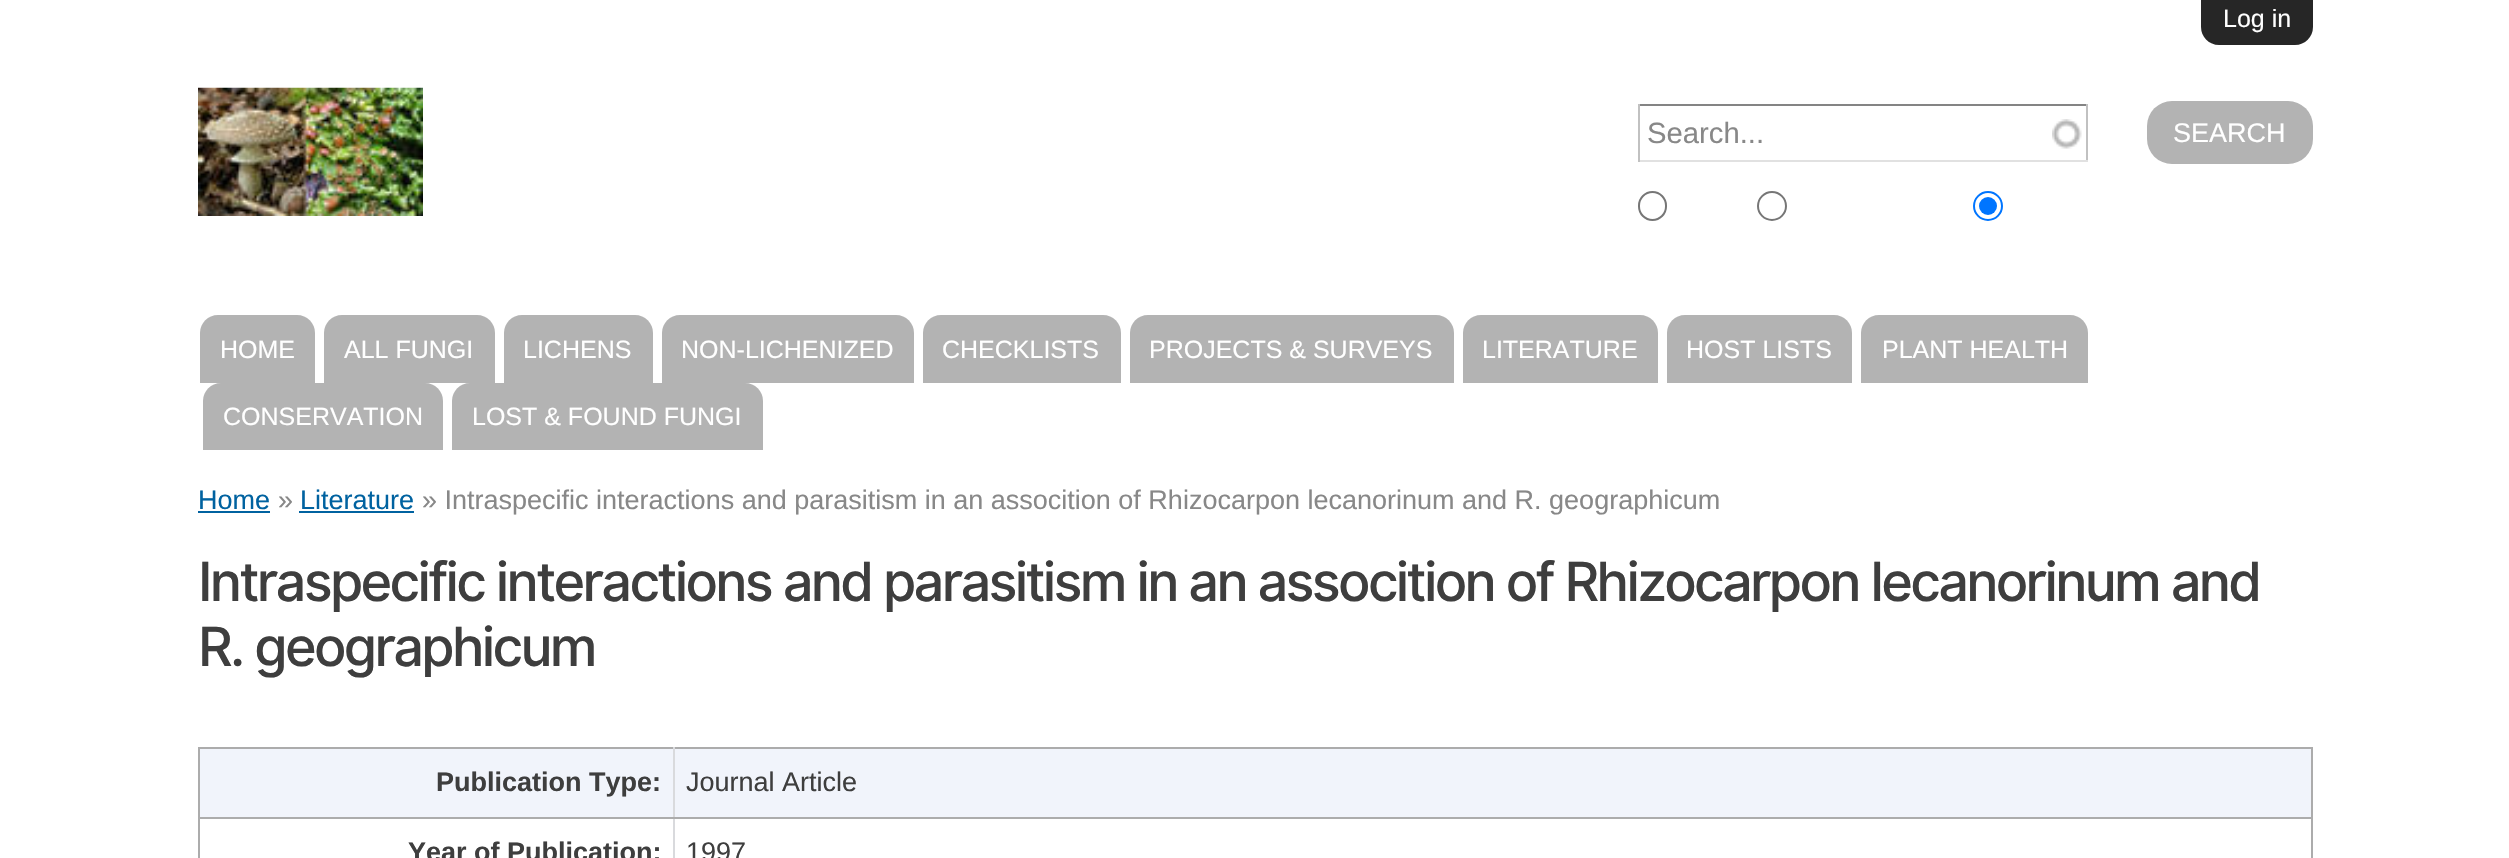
#include "include/core/SkBlurTypes.h"
#include "include/core/SkCanvas.h"
#include "include/core/SkData.h"
#include "include/core/SkFont.h"
#include "include/core/SkFontMgr.h"
#include "include/core/SkImage.h"
#include "include/core/SkMaskFilter.h"
#include "include/core/SkPaint.h"
#include "include/core/SkPathBuilder.h"
#include "include/core/SkTextBlob.h"
#include "include/effects/SkDashPathEffect.h"
#include "include/effects/SkGradientShader.h"
#include "include/utils/SkParsePath.h"

extern sk_sp<SkFontMgr> fontMgr;

static SkFont font(const char* family, int weight, float size, bool italic = false) {
    SkFontStyle style(weight, SkFontStyle::kNormal_Width,
        italic ? SkFontStyle::kItalic_Slant : SkFontStyle::kUpright_Slant);
    SkFont result(fontMgr->matchFamilyStyle(family, style), size);
    result.setSubpixel(true);
    return result;
}

static void drawLabel(SkCanvas* canvas, const char* s, float x, float y, const SkFont& font, SkColor color) {
    SkPaint ink(SkColor4f::FromColor(color));
    ink.setAntiAlias(true);
    canvas->drawString(s, x, y, font, ink);
}

static void drawTracked(SkCanvas* canvas, const char* s, float x, float y, const SkFont& font, const SkPaint& ink, float letter, float word) {
    std::vector<SkGlyphID> glyphs(font.countText(s, strlen(s), SkTextEncoding::kUTF8));
    std::vector<float> xs(glyphs.size());
    font.textToGlyphs(s, strlen(s), SkTextEncoding::kUTF8, glyphs);
    font.getXPos(glyphs, xs, x);
    float extra = 0;
    for (size_t i = 0; i < glyphs.size(); i++) {
        xs[i] += extra;
        extra += letter + word * (glyphs[i] == font.unicharToGlyph(' '));
    }
    canvas->drawTextBlob(SkTextBlob::MakeFromPosHGlyphs(glyphs, xs, y, font), 0, 0, ink);
}

static void fillRect(SkCanvas* canvas, float x, float y, float w, float h, SkColor color) {
    SkPaint ink(SkColor4f::FromColor(color));
    ink.setAntiAlias(true);
    canvas->drawRect(SkRect::MakeXYWH(x, y, w, h), ink);
}

static void fillRRect(SkCanvas* canvas, float x, float y, float w, float h, float radius, SkColor color) {
    SkPaint ink(SkColor4f::FromColor(color));
    ink.setAntiAlias(true);
    canvas->drawRoundRect(SkRect::MakeXYWH(x, y, w, h), radius, radius, ink);
}

static void drawPhoto(SkCanvas* canvas, const char* path, float x, float y, float w, float h) {
    auto image = SkImages::DeferredFromEncodedData(SkData::MakeFromFileName(path));
    canvas->drawImageRect(image, SkRect::MakeXYWH(x, y, w, h), SkSamplingOptions());
}

static SkPath parsePath(const char* data, bool evenOdd = false) {
    SkPath result = *SkParsePath::FromSVGString(data);
    if (evenOdd) result.setFillType(SkPathFillType::kEvenOdd);
    return result;
}

void draw(SkCanvas* canvas) {
    SkPaint paint;
    paint.setAntiAlias(true);
    canvas->clear(0xFFFFFFFF);
    paint.setColor(0xFF262626);
    canvas->drawPath(parsePath("M2201 0H2313V27C2313 37 2305 45 2295 45H2219C2209 45 2201 37 2201 27Z"), paint);
    SkFont font1 = font("Liberation Sans", 400, 25);
    drawLabel(canvas, "Log in", 2223, 27, font1, 0xFFFFFFFF);
    drawPhoto(canvas, "assets/img1.png", 198, 87, 225, 129);
    drawPhoto(canvas, "assets/img2.png", 2052, 119, 30, 30);
    fillRect(canvas, 1638, 104, 450, 2, 0xFF848484);
    fillRect(canvas, 2086, 104, 2, 58, 0xFFC1C1C1);
    fillRect(canvas, 1638, 160, 450, 2, 0xFFE1E1E1);
    fillRect(canvas, 1638, 104, 2, 58, 0xFFC1C1C1);
    SkFont font2 = font("Liberation Sans", 400, 29.25f);
    drawLabel(canvas, "Search...", 1647, 143, font2, 0xFF888888);
    fillRRect(canvas, 2147, 101, 166, 63, 25, 0xFFB3B3B3);
    SkFont font3 = font("Liberation Sans", 400, 27);
    drawLabel(canvas, "SEARCH", 2173, 142, font3, 0xFFFFFFFF);
    paint.setStroke(true);
    paint.setStrokeWidth(2);
    paint.setColor(0xFF767676);
    canvas->drawRoundRect(SkRect::MakeXYWH(1639, 192, 27, 28), 13.5f, 13.5f, paint);
    canvas->drawCircle(1772, 206, 14, paint);
    paint.setColor(0xFF0075FF);
    canvas->drawCircle(1988, 206, 14, paint);
    paint.setStroke(false);
    canvas->drawCircle(1988, 206, 9, paint);
    paint.setColor(0xFFB3B3B3);
    canvas->drawPath(parsePath("M218 315H297C307 315 315 323 315 333V383H200V333C200 323 208 315 218 315Z"), paint);
    drawLabel(canvas, "HOME", 220, 358, font1, 0xFFFFFFFF);
    canvas->drawPath(parsePath("M342 315H477C487 315 495 323 495 333V383H324V333C324 323 332 315 342 315Z"), paint);
    drawLabel(canvas, "ALL FUNGI", 344, 358, font1, 0xFFFFFFFF);
    canvas->drawPath(parsePath("M522 315H635C645 315 653 323 653 333V383H504V333C504 323 512 315 522 315Z"), paint);
    drawLabel(canvas, "LICHENS", 523, 358, font1, 0xFFFFFFFF);
    canvas->drawPath(parsePath("M680 315H896C906 315 914 323 914 333V383H662V333C662 323 670 315 680 315Z"), paint);
    drawLabel(canvas, "NON-LICHENIZED", 681, 358, font1, 0xFFFFFFFF);
    canvas->drawPath(parsePath("M941 315H1103C1113 315 1121 323 1121 333V383H923V333C923 323 931 315 941 315Z"), paint);
    drawLabel(canvas, "CHECKLISTS", 942, 358, font1, 0xFFFFFFFF);
    canvas->drawPath(parsePath("M1148 315H1436C1446 315 1454 323 1454 333V383H1130V333C1130 323 1138 315 1148 315Z"), paint);
    drawLabel(canvas, "PROJECTS & SURVEYS", 1149, 358, font1, 0xFFFFFFFF);
    canvas->drawPath(parsePath("M1481 315H1640C1650 315 1658 323 1658 333V383H1463V333C1463 323 1471 315 1481 315Z"), paint);
    drawLabel(canvas, "LITERATURE", 1482, 358, font1, 0xFFFFFFFF);
    canvas->drawPath(parsePath("M1685 315H1834C1844 315 1852 323 1852 333V383H1667V333C1667 323 1675 315 1685 315Z"), paint);
    drawLabel(canvas, "HOST LISTS", 1686, 358, font1, 0xFFFFFFFF);
    canvas->drawPath(parsePath("M1879 315H2070C2080 315 2088 323 2088 333V383H1861V333C1861 323 1869 315 1879 315Z"), paint);
    drawLabel(canvas, "PLANT HEALTH", 1882, 358, font1, 0xFFFFFFFF);
    canvas->drawPath(parsePath("M221 383H425C435 383 443 391 443 401V450H203V401C203 391 211 383 221 383Z"), paint);
    drawLabel(canvas, "CONSERVATION", 223, 425, font1, 0xFFFFFFFF);
    canvas->drawPath(parsePath("M470 383H745C755 383 763 391 763 401V450H452V401C452 391 460 383 470 383Z"), paint);
    drawLabel(canvas, "LOST & FOUND FUNGI", 472, 425, font1, 0xFFFFFFFF);
    drawLabel(canvas, "Home", 198, 509, font3, 0xFF0062A0);
    fillRect(canvas, 198, 511, 72, 2, 0xFF0062A0);
    drawLabel(canvas, "»", 278, 509, font3, 0xFF888888);
    drawLabel(canvas, "Literature", 300, 509, font3, 0xFF0062A0);
    fillRect(canvas, 299, 511, 115, 2, 0xFF0062A0);
    drawLabel(canvas, "» Intraspecific interactions and parasitism in an assocition of Rhizocarpon lecanorinum and R. geographicum", 422, 509, font3, 0xFF888888);
    SkFont font4 = font("Inter", 500, 54);
    paint.setColor(0xFF3E3E3E);
    drawTracked(canvas, "Intraspecific interactions and parasitism in an assocition of Rhizocarpon lecanorinum and", 198, 601, font4, paint, -2.7f, 0);
    drawTracked(canvas, "R. geographicum", 198, 666, font4, paint, -2.7f, 0);
    fillRect(canvas, 200, 749, 2111, 68, 0xFFF1F4FB);
    fillRect(canvas, 198, 747, 2115, 2, 0xFFACACAC);
    fillRect(canvas, 2311, 817, 2, 41, 0xFFACACAC);
    fillRect(canvas, 2311, 747, 2, 72, 0xFFACACAC);
    fillRect(canvas, 673, 817, 2, 41, 0xFFD9DADD);
    fillRect(canvas, 673, 817, 1640, 2, 0xFFACACAC);
    fillRect(canvas, 673, 747, 2, 72, 0xFFD9DADD);
    fillRect(canvas, 198, 817, 2, 41, 0xFFACACAC);
    fillRect(canvas, 198, 817, 477, 2, 0xFFACACAC);
    fillRect(canvas, 198, 747, 2, 72, 0xFFACACAC);
    SkFont font5 = font("Liberation Sans", 700, 27);
    drawLabel(canvas, "Publication Type:", 436, 791, font5, 0xFF3E3E3E);
    drawLabel(canvas, "Journal Article", 686, 791, font3, 0xFF3E3E3E);
    drawLabel(canvas, "Year of Publication:", 408, 861, font5, 0xFF3E3E3E);
    drawLabel(canvas, "1997", 686, 861, font3, 0xFF3E3E3E);
}
